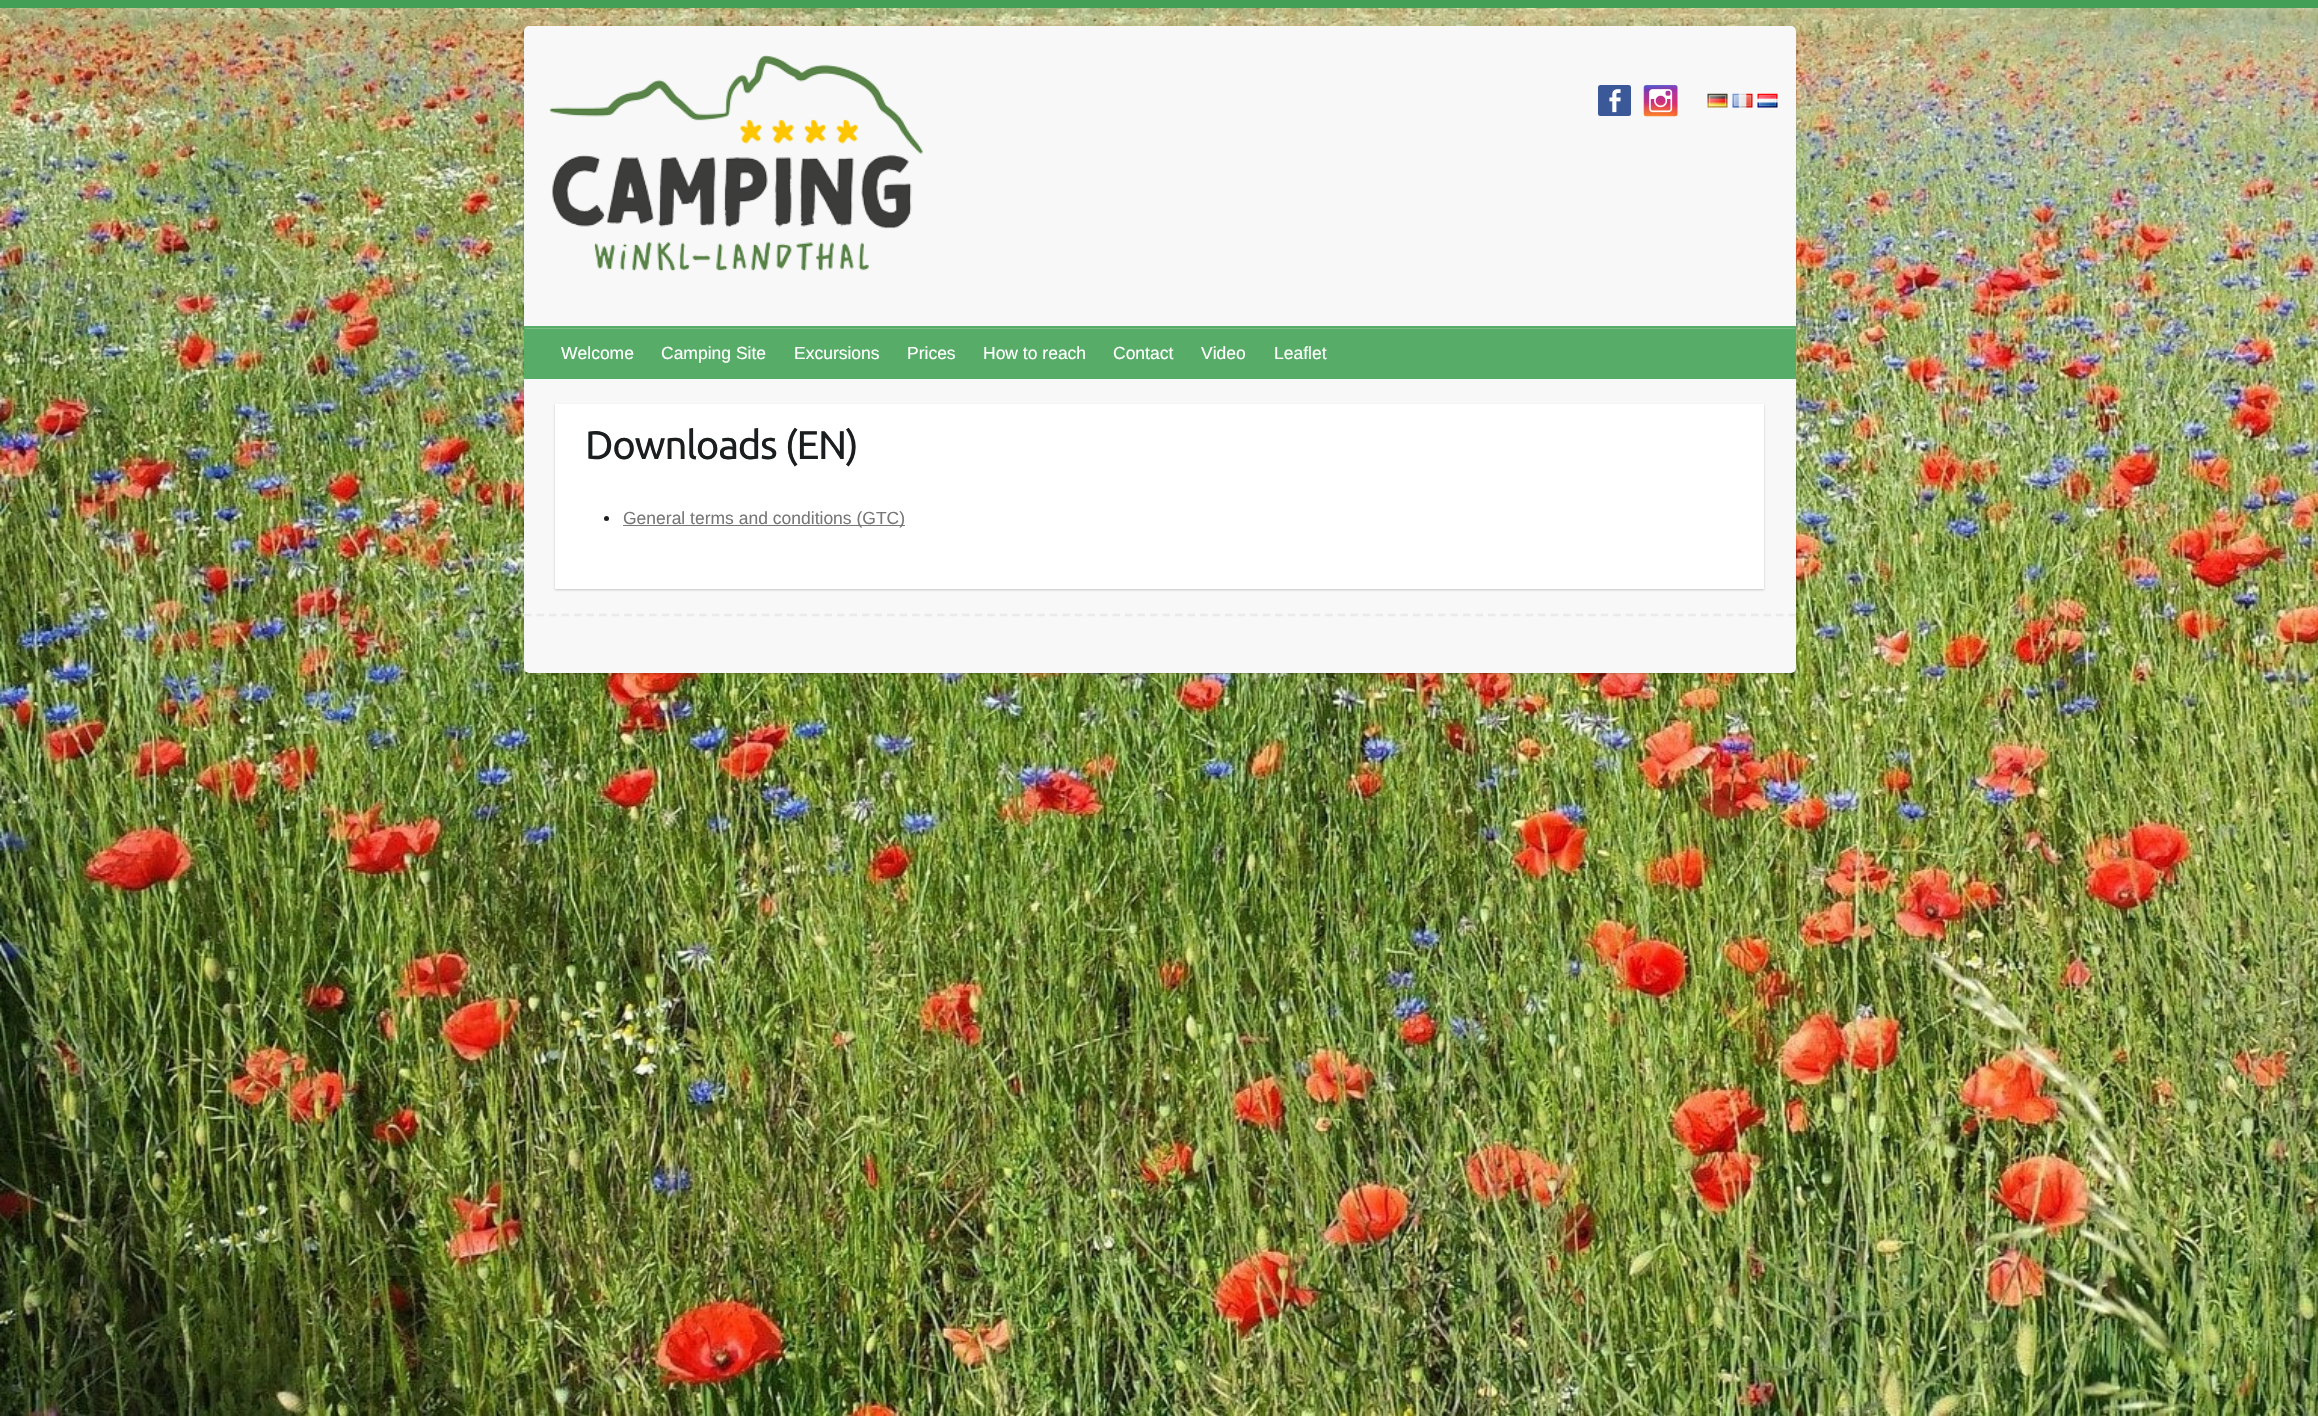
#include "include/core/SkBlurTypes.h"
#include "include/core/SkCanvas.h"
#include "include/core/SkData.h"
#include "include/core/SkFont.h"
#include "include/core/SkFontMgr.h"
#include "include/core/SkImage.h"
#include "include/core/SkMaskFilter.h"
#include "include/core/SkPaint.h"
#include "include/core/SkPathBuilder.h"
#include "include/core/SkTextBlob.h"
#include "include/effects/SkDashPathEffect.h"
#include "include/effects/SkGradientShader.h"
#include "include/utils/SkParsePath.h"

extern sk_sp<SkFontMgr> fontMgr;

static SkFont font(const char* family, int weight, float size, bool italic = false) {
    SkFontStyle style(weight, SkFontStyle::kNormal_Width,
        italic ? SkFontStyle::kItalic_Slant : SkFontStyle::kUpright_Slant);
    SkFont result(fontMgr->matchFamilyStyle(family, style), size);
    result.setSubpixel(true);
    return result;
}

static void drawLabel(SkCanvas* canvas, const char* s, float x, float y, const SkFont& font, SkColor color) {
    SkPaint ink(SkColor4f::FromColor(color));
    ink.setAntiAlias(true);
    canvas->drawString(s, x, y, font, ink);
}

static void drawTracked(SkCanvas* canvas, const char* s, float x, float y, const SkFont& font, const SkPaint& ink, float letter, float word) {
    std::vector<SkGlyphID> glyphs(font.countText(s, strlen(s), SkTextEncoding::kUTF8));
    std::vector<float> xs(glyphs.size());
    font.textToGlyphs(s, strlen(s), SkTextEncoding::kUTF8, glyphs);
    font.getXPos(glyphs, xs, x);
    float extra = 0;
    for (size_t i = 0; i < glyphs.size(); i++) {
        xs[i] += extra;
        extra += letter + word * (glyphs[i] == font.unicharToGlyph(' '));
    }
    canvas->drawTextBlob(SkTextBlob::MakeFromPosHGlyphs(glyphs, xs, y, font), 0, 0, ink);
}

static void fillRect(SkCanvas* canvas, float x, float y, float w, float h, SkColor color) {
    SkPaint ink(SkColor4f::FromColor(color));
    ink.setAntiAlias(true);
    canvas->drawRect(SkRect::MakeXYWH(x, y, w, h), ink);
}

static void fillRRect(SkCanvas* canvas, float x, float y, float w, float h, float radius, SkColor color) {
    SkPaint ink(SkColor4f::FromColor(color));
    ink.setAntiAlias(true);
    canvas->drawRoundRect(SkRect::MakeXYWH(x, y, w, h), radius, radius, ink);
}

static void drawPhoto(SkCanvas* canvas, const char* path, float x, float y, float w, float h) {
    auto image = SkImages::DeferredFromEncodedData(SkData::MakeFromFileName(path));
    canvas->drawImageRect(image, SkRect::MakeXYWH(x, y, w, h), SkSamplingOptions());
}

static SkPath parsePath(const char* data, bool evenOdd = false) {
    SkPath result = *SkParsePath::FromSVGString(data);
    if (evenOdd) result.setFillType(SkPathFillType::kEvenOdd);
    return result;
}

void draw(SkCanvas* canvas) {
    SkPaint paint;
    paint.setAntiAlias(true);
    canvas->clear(0xFFFFFFFF);
    drawPhoto(canvas, "assets/img1.png", 0, 8, 2318, 1408);
    fillRect(canvas, 0, 0, 2318, 8, 0xFF439F55);
    paint.setColor(0x33000000);
    paint.setMaskFilter(SkMaskFilter::MakeBlur(kNormal_SkBlurStyle, 1));
    canvas->drawRoundRect(SkRect::MakeXYWH(524, 28, 1272, 646), 5, 5, paint);
    paint.setMaskFilter(nullptr);
    fillRRect(canvas, 524, 26, 1272, 647, 5, 0xFFF8F8F8);
    drawPhoto(canvas, "assets/img2.png", 549, 55, 374, 217);
    fillRRect(canvas, 1598, 85, 33, 31, 2.5f, 0xFF3B5998);
    drawPhoto(canvas, "assets/img3.png", 1609, 89, 12, 24);
    drawPhoto(canvas, "assets/img4.png", 1643, 85, 35, 32);
    drawPhoto(canvas, "assets/img5.png", 1649, 89, 24, 24);
    drawPhoto(canvas, "assets/img6.png", 1707, 93, 21, 15);
    drawPhoto(canvas, "assets/img7.png", 1732, 93, 21, 15);
    drawPhoto(canvas, "assets/img8.png", 1757, 93, 21, 15);
    fillRect(canvas, 524, 326, 1272, 53, 0xFF57AD68);
    fillRect(canvas, 525, 328, 1270, 1, 0xFF79BD86);
    SkFont font1 = font("Liberation Sans", 400, 17.5f);
    drawLabel(canvas, "Welcome", 561, 359, font1, 0xFFFFFFFF);
    drawLabel(canvas, "Camping Site", 661, 359, font1, 0xFFFFFFFF);
    drawLabel(canvas, "Excursions", 794, 359, font1, 0xFFFFFFFF);
    drawLabel(canvas, "Prices", 907, 359, font1, 0xFFFFFFFF);
    drawLabel(canvas, "How to reach", 983, 359, font1, 0xFFFFFFFF);
    drawLabel(canvas, "Contact", 1113, 359, font1, 0xFFFFFFFF);
    drawLabel(canvas, "Video", 1201, 359, font1, 0xFFFFFFFF);
    drawLabel(canvas, "Leaflet", 1274, 359, font1, 0xFFFFFFFF);
    paint.setMaskFilter(SkMaskFilter::MakeBlur(kNormal_SkBlurStyle, 1));
    canvas->drawRect(SkRect::MakeXYWH(555, 405, 1209, 185), paint);
    paint.setMaskFilter(nullptr);
    fillRect(canvas, 555, 404, 1209, 185, 0xFFFFFFFF);
    SkFont font2 = font("Ubuntu", 400, 40);
    paint.setColor(0xFF1B1E1F);
    drawTracked(canvas, "Downloads (EN)", 585, 459, font2, paint, -1.25f, 0);
    paint.setColor(0xFF1D1D1D);
    canvas->drawCircle(606.5f, 518.5f, 2.5f, paint);
    fillRect(canvas, 623, 525, 282, 1, 0xFF777777);
    drawLabel(canvas, "General terms and conditions (GTC)", 623, 524, font1, 0xFF777777);
    paint.setStroke(true);
    paint.setStrokeWidth(2.5f);
    paint.setColor(0xFFEAEAEA);
    paint.setPathEffect(SkDashPathEffect::Make({{7.5f, 5.02f}}, 0));
    canvas->drawPath(parsePath("M524 615H1796"), paint);
    paint.setPathEffect(nullptr);
}
